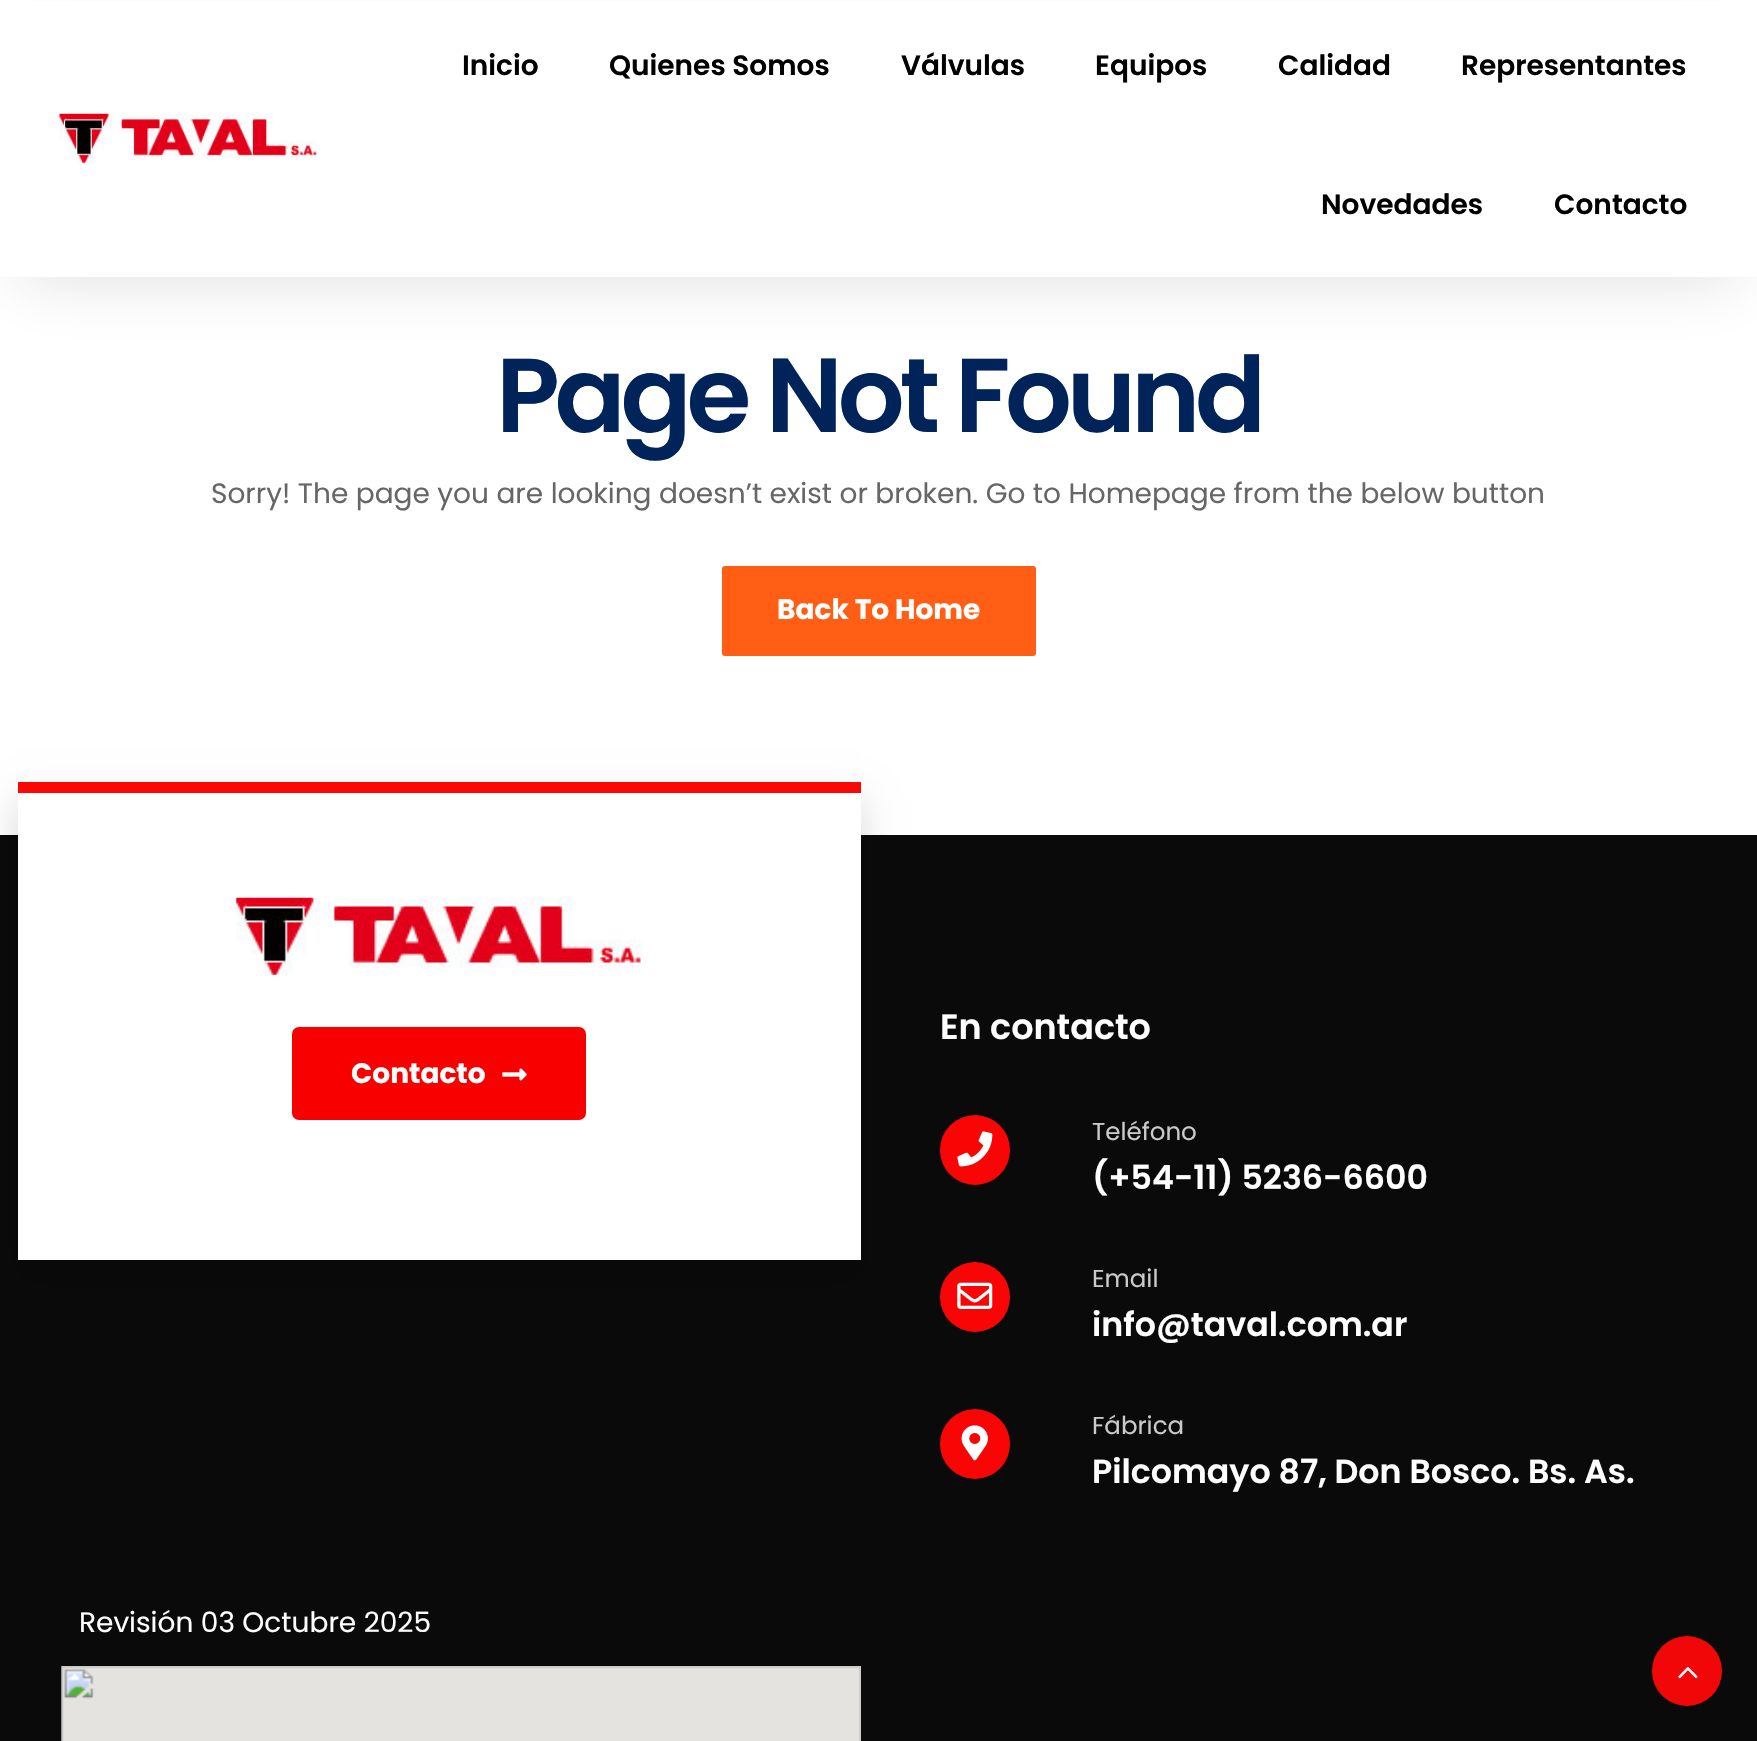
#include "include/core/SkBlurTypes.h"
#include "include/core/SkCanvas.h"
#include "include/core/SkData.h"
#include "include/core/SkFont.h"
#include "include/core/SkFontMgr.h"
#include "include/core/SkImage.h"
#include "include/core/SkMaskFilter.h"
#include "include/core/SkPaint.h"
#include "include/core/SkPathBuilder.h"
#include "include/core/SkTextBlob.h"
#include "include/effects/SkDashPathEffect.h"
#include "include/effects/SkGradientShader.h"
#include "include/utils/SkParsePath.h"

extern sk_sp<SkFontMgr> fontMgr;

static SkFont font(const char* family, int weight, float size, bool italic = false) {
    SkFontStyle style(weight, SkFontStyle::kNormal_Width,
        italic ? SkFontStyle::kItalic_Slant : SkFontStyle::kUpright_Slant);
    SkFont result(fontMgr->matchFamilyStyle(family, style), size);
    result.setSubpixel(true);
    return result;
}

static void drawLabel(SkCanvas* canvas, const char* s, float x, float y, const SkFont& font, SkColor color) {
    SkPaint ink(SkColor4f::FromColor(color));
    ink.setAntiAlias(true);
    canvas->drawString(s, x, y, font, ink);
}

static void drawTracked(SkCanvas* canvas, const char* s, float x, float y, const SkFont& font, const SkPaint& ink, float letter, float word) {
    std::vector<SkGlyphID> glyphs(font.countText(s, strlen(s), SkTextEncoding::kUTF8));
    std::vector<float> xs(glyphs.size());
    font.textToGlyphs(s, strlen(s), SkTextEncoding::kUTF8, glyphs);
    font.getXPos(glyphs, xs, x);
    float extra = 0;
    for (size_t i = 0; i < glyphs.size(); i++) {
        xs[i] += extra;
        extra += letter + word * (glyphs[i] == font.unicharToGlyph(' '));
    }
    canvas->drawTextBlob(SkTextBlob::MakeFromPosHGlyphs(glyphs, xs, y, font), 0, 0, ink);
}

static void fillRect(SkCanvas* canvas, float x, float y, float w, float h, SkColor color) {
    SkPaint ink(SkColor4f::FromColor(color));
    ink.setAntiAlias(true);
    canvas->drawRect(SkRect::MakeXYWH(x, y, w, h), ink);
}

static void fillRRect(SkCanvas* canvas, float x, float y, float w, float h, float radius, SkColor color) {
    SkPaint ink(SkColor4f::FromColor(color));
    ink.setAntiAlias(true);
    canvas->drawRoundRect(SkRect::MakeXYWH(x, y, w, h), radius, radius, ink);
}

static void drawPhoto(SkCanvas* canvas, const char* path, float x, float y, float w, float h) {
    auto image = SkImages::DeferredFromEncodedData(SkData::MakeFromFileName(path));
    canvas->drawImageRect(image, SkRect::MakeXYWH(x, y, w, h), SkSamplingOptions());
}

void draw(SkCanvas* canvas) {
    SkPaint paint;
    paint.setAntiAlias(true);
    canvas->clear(0xFFFFFFFF);
    paint.setColor(0x26232323);
    paint.setMaskFilter(SkMaskFilter::MakeBlur(kNormal_SkBlurStyle, 30.5f));
    canvas->drawRect(SkRect::MakeXYWH(21, 44, 1715, 234), paint);
    paint.setMaskFilter(nullptr);
    fillRect(canvas, 0, 1, 1757, 276, 0xFFFFFFFF);
    drawPhoto(canvas, "assets/img1.png", 59, 113, 259, 51);
    SkFont font1 = font("Poppins", 600, 28);
    drawLabel(canvas, "Inicio", 462, 75, font1, 0xFF000000);
    drawLabel(canvas, "Quienes Somos", 609, 75, font1, 0xFF000000);
    drawLabel(canvas, "Válvulas", 901, 75, font1, 0xFF000000);
    drawLabel(canvas, "Equipos", 1095, 75, font1, 0xFF000000);
    drawLabel(canvas, "Calidad", 1278, 75, font1, 0xFF000000);
    drawLabel(canvas, "Representantes", 1461, 75, font1, 0xFF000000);
    drawLabel(canvas, "Novedades", 1321, 214, font1, 0xFF000000);
    drawLabel(canvas, "Contacto", 1554, 214, font1, 0xFF000000);
    SkFont font2 = font("Poppins", 600, 105);
    paint.setColor(0xFF00235A);
    drawTracked(canvas, "Page Not Found", 496, 432, font2, paint, -5.25f, 0);
    SkFont font3 = font("Poppins", 400, 28);
    drawLabel(canvas, "Sorry! The page you are looking doesn’t exist or broken. Go to Homepage from the below button", 211, 503, font3, 0xFF666666);
    paint.setColor(0xFFFF5E14);
    canvas->drawRoundRect(SkRect::MakeXYWH(720, 564, 318, 94), 5, 5, paint);
    paint.setStroke(true);
    paint.setStrokeWidth(4);
    paint.setColor(0xFFFFFFFF);
    canvas->drawRoundRect(SkRect::MakeXYWH(720, 564, 318, 94), 5, 5, paint);
    SkFont font4 = font("Poppins", 700, 28);
    drawLabel(canvas, "Back To Home", 777, 619, font4, 0xFFFFFFFF);
    fillRect(canvas, 0, 835, 1757, 906, 0xFF0A0A0A);
    paint.setStroke(false);
    paint.setColor(0x26000000);
    paint.setMaskFilter(SkMaskFilter::MakeBlur(kNormal_SkBlurStyle, 17.5f));
    canvas->drawRect(SkRect::MakeXYWH(18, 800, 843, 478), paint);
    paint.setMaskFilter(nullptr);
    fillRect(canvas, 18, 793, 843, 467, 0xFFFFFFFF);
    fillRect(canvas, 18, 782, 843, 11, 0xFFFD0606);
    drawPhoto(canvas, "assets/img2.png", 236, 897, 407, 78);
    fillRRect(canvas, 292, 1027, 294, 93, 7, 0xFFF90000);
    drawLabel(canvas, "Contacto", 351, 1083, font4, 0xFFFFFFFF);
    drawPhoto(canvas, "assets/img3.png", 502, 1068, 25, 13);
    SkFont font5 = font("Poppins", 600, 35);
    drawLabel(canvas, "En contacto", 940, 1039, font5, 0xFFFFFFFF);
    paint.setColor(0xFFF90505);
    canvas->drawCircle(975, 1150, 35, paint);
    drawPhoto(canvas, "assets/img4.png", 957, 1131, 36, 36);
    SkFont font6 = font("Poppins", 400, 24.5f);
    drawLabel(canvas, "Teléfono", 1092, 1140, font6, 0xFFCACACA);
    SkFont font7 = font("Poppins", 600, 33.25f);
    drawLabel(canvas, "(+54-11) 5236-6600", 1092, 1189, font7, 0xFFFFFFFF);
    canvas->drawCircle(975, 1297, 35, paint);
    drawPhoto(canvas, "assets/img5.png", 957, 1282, 36, 27);
    drawLabel(canvas, "Email", 1092, 1287, font6, 0xFFCACACA);
    drawLabel(canvas, "info@taval.com.ar", 1092, 1336, font7, 0xFFFFFFFF);
    canvas->drawCircle(975, 1444, 35, paint);
    drawPhoto(canvas, "assets/img6.png", 961, 1425, 27, 36);
    drawLabel(canvas, "Fábrica", 1092, 1434, font6, 0xFFCACACA);
    drawLabel(canvas, "Pilcomayo 87, Don Bosco. Bs. As.", 1092, 1483, font7, 0xFFFFFFFF);
    drawLabel(canvas, "Revisión 03 Octubre 2025", 79, 1632, font3, 0xFFFFFFFF);
    drawPhoto(canvas, "assets/img7.png", 61, 1666, 800, 75);
    paint.setColor(0xFFF10707);
    canvas->drawCircle(1687, 1671, 35, paint);
    drawPhoto(canvas, "assets/img8.png", 1678, 1667, 20, 12);
}
